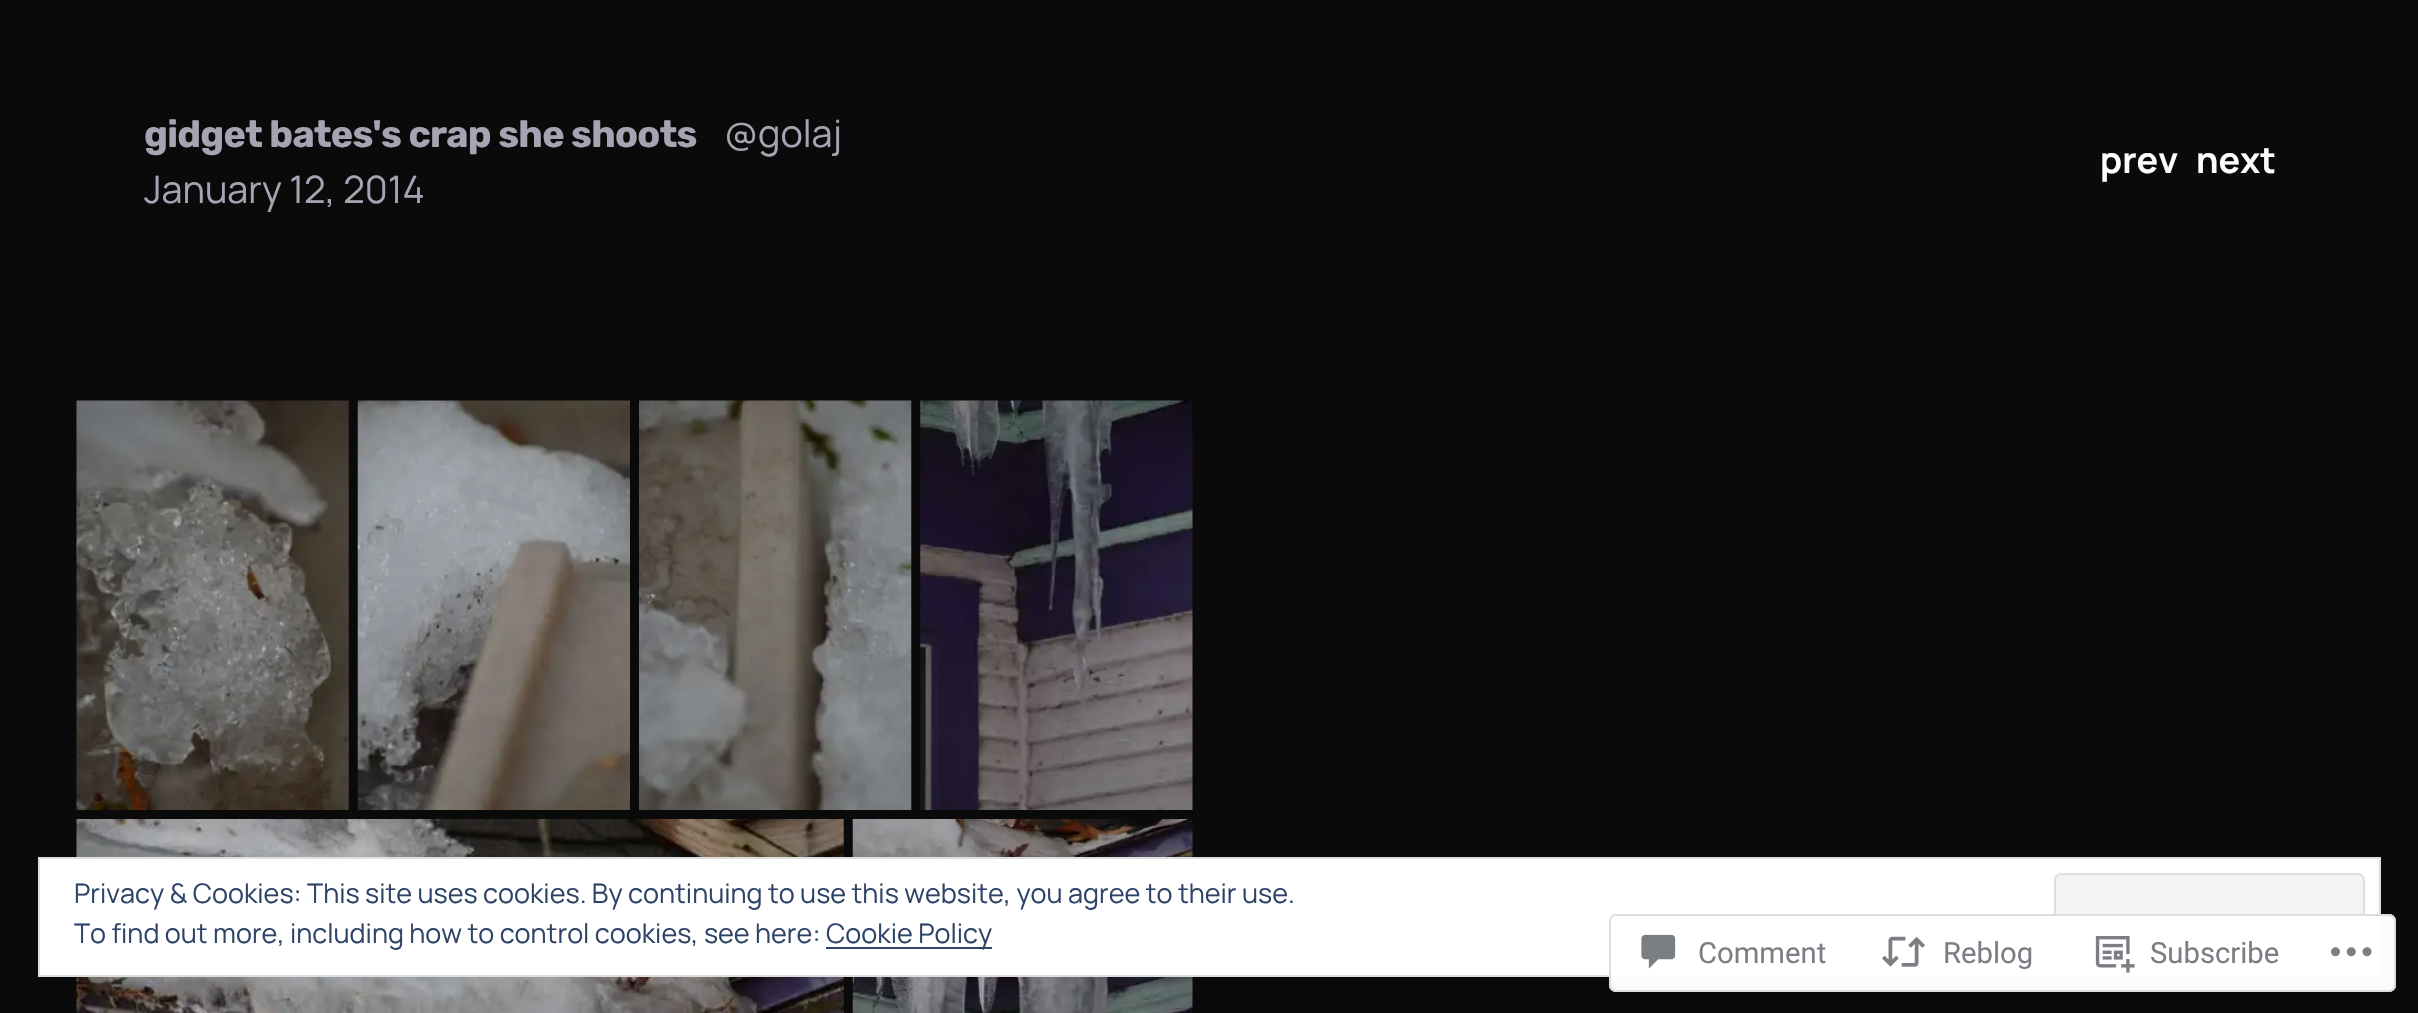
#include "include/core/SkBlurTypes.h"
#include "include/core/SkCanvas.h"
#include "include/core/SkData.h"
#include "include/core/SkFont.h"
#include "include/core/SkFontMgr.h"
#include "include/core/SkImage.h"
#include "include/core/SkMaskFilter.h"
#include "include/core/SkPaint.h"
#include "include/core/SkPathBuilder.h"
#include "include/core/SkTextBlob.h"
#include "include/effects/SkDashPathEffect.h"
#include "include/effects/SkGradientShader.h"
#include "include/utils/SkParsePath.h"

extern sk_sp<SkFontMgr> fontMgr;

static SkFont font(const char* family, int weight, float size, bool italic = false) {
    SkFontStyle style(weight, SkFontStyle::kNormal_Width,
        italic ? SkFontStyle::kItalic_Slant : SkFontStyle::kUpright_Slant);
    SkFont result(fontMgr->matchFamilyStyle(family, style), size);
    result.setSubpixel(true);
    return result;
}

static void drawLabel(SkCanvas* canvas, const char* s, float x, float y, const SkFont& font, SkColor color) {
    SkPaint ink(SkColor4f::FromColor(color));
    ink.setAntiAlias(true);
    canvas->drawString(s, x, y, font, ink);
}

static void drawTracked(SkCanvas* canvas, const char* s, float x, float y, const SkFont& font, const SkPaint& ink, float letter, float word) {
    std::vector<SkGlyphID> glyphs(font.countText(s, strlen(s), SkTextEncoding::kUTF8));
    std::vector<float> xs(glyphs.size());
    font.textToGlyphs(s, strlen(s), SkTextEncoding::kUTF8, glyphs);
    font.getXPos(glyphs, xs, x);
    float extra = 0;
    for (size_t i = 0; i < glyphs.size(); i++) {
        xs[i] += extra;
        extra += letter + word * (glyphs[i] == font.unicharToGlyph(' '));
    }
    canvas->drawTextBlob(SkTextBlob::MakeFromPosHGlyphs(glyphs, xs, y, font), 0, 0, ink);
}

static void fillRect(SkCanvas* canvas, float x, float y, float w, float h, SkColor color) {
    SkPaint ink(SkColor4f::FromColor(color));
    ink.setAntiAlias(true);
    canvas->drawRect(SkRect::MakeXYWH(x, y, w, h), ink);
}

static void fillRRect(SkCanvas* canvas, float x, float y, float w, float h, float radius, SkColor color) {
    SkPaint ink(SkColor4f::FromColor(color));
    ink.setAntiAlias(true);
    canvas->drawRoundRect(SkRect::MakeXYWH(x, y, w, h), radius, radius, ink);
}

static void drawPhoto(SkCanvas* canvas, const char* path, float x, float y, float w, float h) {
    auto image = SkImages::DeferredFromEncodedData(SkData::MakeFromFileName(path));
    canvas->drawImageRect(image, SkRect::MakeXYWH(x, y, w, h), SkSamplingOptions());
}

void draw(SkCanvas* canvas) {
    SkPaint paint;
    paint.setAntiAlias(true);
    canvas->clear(0xFF0A0A0A);
    SkFont font1 = font("Rubik", 700, 37.75f);
    paint.setColor(0xFFA5A4B2);
    drawTracked(canvas, "gidget bates's crap she shoots", 144, 147, font1, paint, -0.75f, 0);
    SkFont font2 = font("Manrope", 400, 37.75f);
    drawLabel(canvas, "@golaj", 724, 147, font2, 0xFFA5A4B2);
    drawLabel(canvas, "January 12, 2014", 144, 203, font2, 0xFFA5A4B2);
    SkFont font3 = font("Manrope", 700, 36);
    drawLabel(canvas, "prev", 2100, 173, font3, 0xFFFDFDFD);
    drawLabel(canvas, "next", 2196, 173, font3, 0xFFFDFDFD);
    drawPhoto(canvas, "assets/img1.png", 76, 400, 273, 410);
    drawPhoto(canvas, "assets/img2.png", 357, 400, 273, 410);
    drawPhoto(canvas, "assets/img3.png", 639, 400, 273, 410);
    drawPhoto(canvas, "assets/img4.png", 920, 400, 273, 410);
    drawPhoto(canvas, "assets/img5.png", 76, 819, 768, 194);
    drawPhoto(canvas, "assets/img6.png", 852, 819, 341, 194);
    paint.setColor(0xFFFFFFFF);
    canvas->drawRect(SkRect::MakeXYWH(39, 858, 2341, 118), paint);
    paint.setStroke(true);
    paint.setStrokeWidth(2);
    paint.setColor(0xFFDEDEDE);
    canvas->drawRect(SkRect::MakeXYWH(39, 858, 2341, 118), paint);
    SkFont font4 = font("Manrope", 400, 27);
    drawLabel(canvas, "Privacy & Cookies: This site uses cookies. By continuing to use this website, you agree to their use.", 74, 903, font4, 0xFF2E4467);
    paint.setStroke(false);
    paint.setColor(0xFFF3F3F3);
    canvas->drawRoundRect(SkRect::MakeXYWH(2055, 874, 309, 86), 6, 6, paint);
    paint.setStroke(true);
    paint.setColor(0xFFDEDEDE);
    canvas->drawRoundRect(SkRect::MakeXYWH(2055, 874, 309, 86), 6, 6, paint);
    drawLabel(canvas, "To find out more, including how to control cookies, see here:", 74, 943, font4, 0xFF2E4467);
    fillRect(canvas, 826, 947, 166, 2, 0xFF2E4467);
    drawLabel(canvas, "Cookie Policy", 826, 943, font4, 0xFF2E4467);
    fillRRect(canvas, 1609, 914, 787, 78, 7, 0xFAFFFFFF);
    paint.setColor(0xFADCDCDE);
    canvas->drawRoundRect(SkRect::MakeXYWH(1610, 915, 785, 76), 6, 6, paint);
    drawPhoto(canvas, "assets/img7.png", 1641, 934, 35, 35);
    SkFont font5 = font("Roboto", 400, 29.25f);
    drawLabel(canvas, "Comment", 1698, 963, font5, 0xFF7B7F85);
    drawPhoto(canvas, "assets/img8.png", 1882, 936, 43, 31);
    drawLabel(canvas, "Reblog", 1943, 963, font5, 0xFF7B7F85);
    drawPhoto(canvas, "assets/img9.png", 2095, 936, 40, 37);
    drawLabel(canvas, "Subscribe", 2150, 963, font5, 0xFF7B7F85);
    drawPhoto(canvas, "assets/img10.png", 2331, 947, 41, 10);
}
